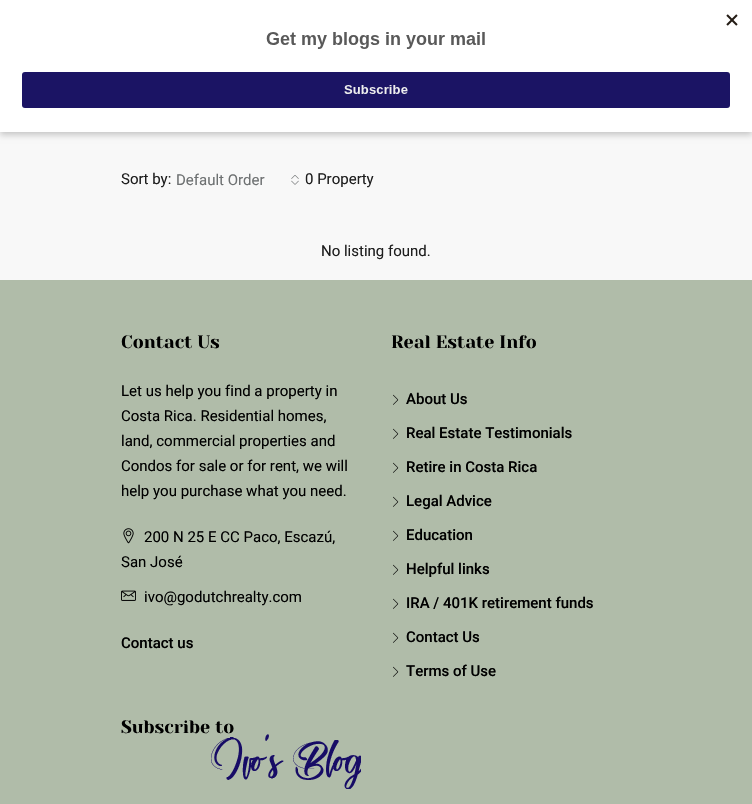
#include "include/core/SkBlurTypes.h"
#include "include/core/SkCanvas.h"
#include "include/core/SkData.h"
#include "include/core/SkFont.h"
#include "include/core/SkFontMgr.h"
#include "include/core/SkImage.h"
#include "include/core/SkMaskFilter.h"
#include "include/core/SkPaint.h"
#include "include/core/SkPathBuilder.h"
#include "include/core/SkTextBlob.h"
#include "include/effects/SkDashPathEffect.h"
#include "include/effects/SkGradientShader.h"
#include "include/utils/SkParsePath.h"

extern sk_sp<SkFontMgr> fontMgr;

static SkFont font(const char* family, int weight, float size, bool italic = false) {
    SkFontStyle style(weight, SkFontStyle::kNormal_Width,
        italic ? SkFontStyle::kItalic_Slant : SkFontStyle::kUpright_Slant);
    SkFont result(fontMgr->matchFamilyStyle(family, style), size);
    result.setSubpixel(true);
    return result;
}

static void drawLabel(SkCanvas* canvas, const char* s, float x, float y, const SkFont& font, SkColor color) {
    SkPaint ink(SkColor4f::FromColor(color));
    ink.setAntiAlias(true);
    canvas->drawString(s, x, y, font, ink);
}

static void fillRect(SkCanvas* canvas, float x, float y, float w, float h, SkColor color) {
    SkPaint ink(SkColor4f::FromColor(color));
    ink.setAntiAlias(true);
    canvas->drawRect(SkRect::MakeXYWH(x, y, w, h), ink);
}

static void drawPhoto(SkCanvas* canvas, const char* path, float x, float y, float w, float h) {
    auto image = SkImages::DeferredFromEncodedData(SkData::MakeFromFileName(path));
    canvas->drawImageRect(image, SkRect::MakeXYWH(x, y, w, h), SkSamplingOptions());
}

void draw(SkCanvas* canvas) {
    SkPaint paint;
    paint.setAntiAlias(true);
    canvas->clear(0xFFF8F8F8);
    paint.setColor(0x33000000);
    paint.setMaskFilter(SkMaskFilter::MakeBlur(kNormal_SkBlurStyle, 3));
    canvas->drawRect(SkRect::MakeXYWH(0, 3, 752, 132), paint);
    paint.setMaskFilter(nullptr);
    fillRect(canvas, 0, 0, 752, 132, 0xFFFFFFFF);
    drawPhoto(canvas, "assets/img1.png", 22, 14, 716, 94);
    SkFont font1 = font("Roboto", 400, 15);
    drawLabel(canvas, "Sort by:", 121, 184, font1, 0xFF1E1E1E);
    drawLabel(canvas, "Default Order", 176, 185, font1, 0xFF6E7172);
    drawPhoto(canvas, "assets/img2.png", 291, 175, 8, 10);
    drawLabel(canvas, "0 Property", 305, 184, font1, 0xFF1E1E1E);
    drawLabel(canvas, "No listing found.", 321, 256, font1, 0xFF1E1E1E);
    fillRect(canvas, 0, 280, 752, 524, 0xFFB0BCA9);
    SkFont font2 = font("Yeseva One", 400, 18);
    drawLabel(canvas, "Contact Us", 121, 348, font2, 0xFF000000);
    drawLabel(canvas, "Let us help you find a property in", 121, 396, font1, 0xFF000000);
    drawLabel(canvas, "Costa Rica. Residential homes,", 121, 421, font1, 0xFF000000);
    drawLabel(canvas, "land, commercial properties and", 121, 446, font1, 0xFF000000);
    drawLabel(canvas, "Condos for sale or for rent, we will", 121, 471, font1, 0xFF000000);
    drawLabel(canvas, "help you purchase what you need.", 121, 496, font1, 0xFF000000);
    drawPhoto(canvas, "assets/img3.png", 123, 528, 11, 16);
    drawLabel(canvas, "200 N 25 E CC Paco, Escazú,", 144, 542, font1, 0xFF000000);
    drawLabel(canvas, "San José", 121, 567, font1, 0xFF000000);
    drawPhoto(canvas, "assets/img4.png", 121, 590, 15, 11);
    drawLabel(canvas, "ivo@godutchrealty.com", 144, 602, font1, 0xFF000000);
    SkFont font3 = font("Roboto", 500, 15);
    drawLabel(canvas, "Contact us", 121, 648, font3, 0xFF000000);
    drawLabel(canvas, "Real Estate Info", 391, 348, font2, 0xFF000000);
    drawPhoto(canvas, "assets/img5.png", 393, 394, 6, 11);
    drawLabel(canvas, "About Us", 406, 404, font3, 0xFF000000);
    drawPhoto(canvas, "assets/img5.png", 393, 428, 6, 11);
    drawLabel(canvas, "Real Estate Testimonials", 406, 438, font3, 0xFF000000);
    drawPhoto(canvas, "assets/img5.png", 393, 462, 6, 11);
    drawLabel(canvas, "Retire in Costa Rica", 406, 472, font3, 0xFF000000);
    drawPhoto(canvas, "assets/img5.png", 393, 496, 6, 11);
    drawLabel(canvas, "Legal Advice", 406, 506, font3, 0xFF000000);
    drawPhoto(canvas, "assets/img5.png", 393, 530, 6, 11);
    drawLabel(canvas, "Education", 406, 540, font3, 0xFF000000);
    drawPhoto(canvas, "assets/img5.png", 393, 564, 6, 11);
    drawLabel(canvas, "Helpful links", 406, 574, font3, 0xFF000000);
    drawPhoto(canvas, "assets/img5.png", 393, 598, 6, 11);
    drawLabel(canvas, "IRA / 401K retirement funds", 406, 608, font3, 0xFF000000);
    drawPhoto(canvas, "assets/img5.png", 393, 632, 6, 11);
    drawLabel(canvas, "Contact Us", 406, 642, font3, 0xFF000000);
    drawPhoto(canvas, "assets/img5.png", 393, 666, 6, 11);
    drawLabel(canvas, "Terms of Use", 406, 676, font3, 0xFF000000);
    drawPhoto(canvas, "assets/img6.png", 211, 734, 150, 55);
    drawLabel(canvas, "Subscribe to", 121, 733, font2, 0xFF000000);
}
